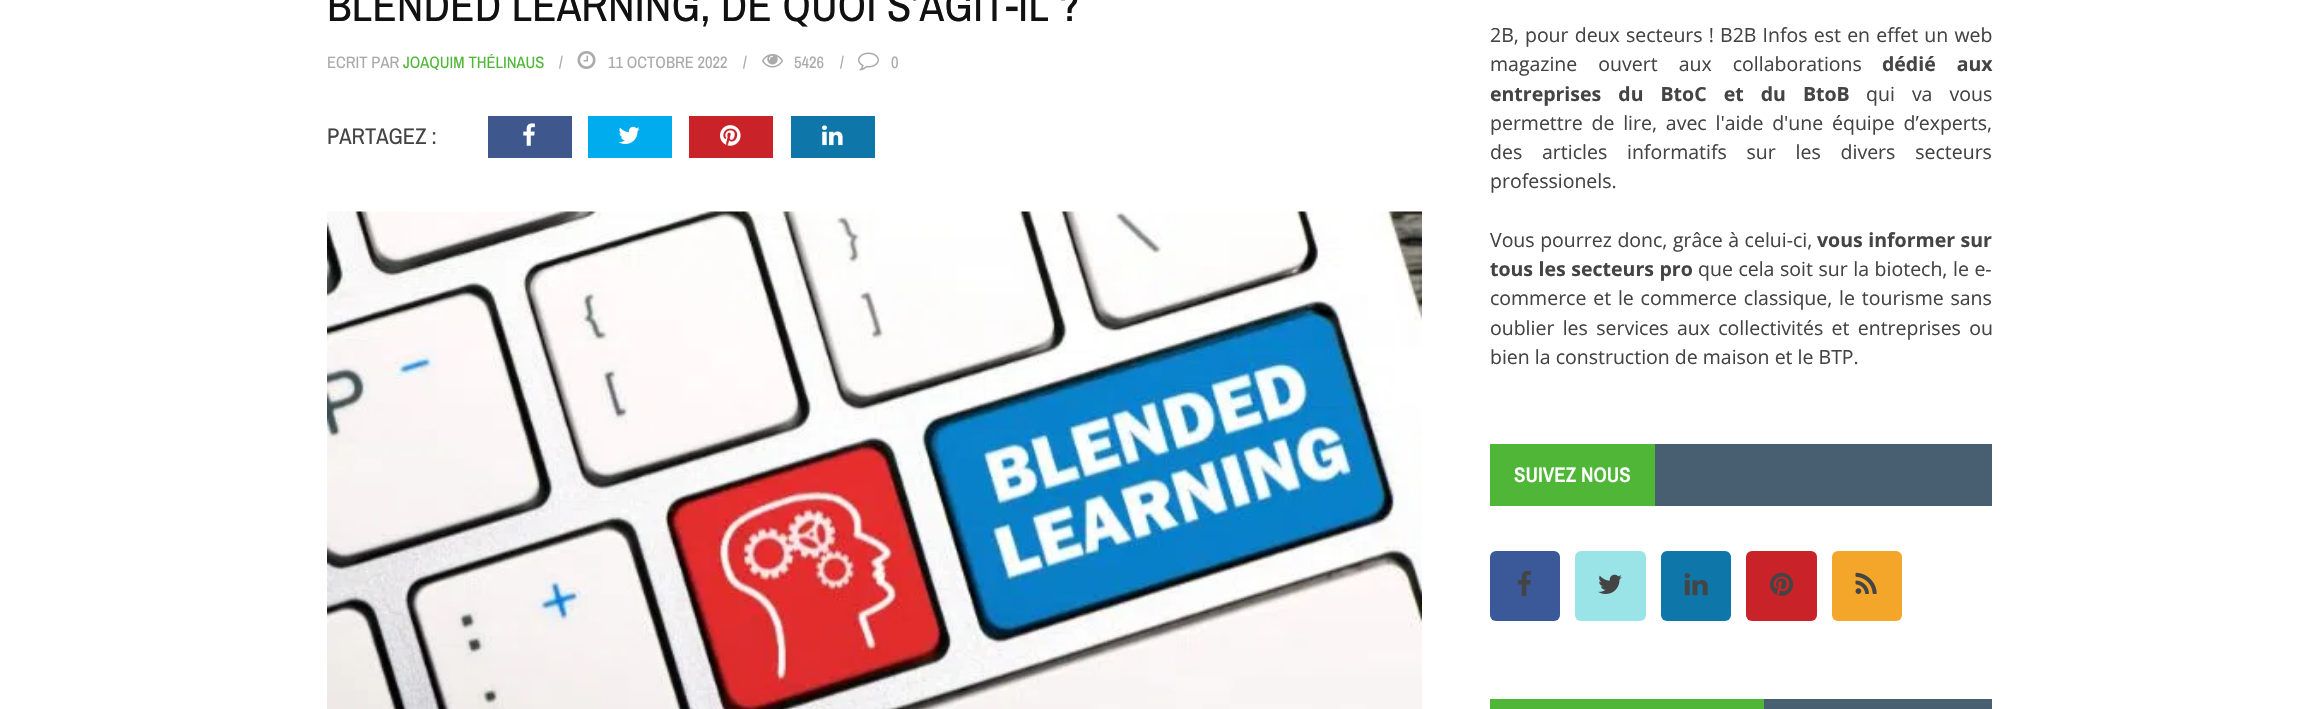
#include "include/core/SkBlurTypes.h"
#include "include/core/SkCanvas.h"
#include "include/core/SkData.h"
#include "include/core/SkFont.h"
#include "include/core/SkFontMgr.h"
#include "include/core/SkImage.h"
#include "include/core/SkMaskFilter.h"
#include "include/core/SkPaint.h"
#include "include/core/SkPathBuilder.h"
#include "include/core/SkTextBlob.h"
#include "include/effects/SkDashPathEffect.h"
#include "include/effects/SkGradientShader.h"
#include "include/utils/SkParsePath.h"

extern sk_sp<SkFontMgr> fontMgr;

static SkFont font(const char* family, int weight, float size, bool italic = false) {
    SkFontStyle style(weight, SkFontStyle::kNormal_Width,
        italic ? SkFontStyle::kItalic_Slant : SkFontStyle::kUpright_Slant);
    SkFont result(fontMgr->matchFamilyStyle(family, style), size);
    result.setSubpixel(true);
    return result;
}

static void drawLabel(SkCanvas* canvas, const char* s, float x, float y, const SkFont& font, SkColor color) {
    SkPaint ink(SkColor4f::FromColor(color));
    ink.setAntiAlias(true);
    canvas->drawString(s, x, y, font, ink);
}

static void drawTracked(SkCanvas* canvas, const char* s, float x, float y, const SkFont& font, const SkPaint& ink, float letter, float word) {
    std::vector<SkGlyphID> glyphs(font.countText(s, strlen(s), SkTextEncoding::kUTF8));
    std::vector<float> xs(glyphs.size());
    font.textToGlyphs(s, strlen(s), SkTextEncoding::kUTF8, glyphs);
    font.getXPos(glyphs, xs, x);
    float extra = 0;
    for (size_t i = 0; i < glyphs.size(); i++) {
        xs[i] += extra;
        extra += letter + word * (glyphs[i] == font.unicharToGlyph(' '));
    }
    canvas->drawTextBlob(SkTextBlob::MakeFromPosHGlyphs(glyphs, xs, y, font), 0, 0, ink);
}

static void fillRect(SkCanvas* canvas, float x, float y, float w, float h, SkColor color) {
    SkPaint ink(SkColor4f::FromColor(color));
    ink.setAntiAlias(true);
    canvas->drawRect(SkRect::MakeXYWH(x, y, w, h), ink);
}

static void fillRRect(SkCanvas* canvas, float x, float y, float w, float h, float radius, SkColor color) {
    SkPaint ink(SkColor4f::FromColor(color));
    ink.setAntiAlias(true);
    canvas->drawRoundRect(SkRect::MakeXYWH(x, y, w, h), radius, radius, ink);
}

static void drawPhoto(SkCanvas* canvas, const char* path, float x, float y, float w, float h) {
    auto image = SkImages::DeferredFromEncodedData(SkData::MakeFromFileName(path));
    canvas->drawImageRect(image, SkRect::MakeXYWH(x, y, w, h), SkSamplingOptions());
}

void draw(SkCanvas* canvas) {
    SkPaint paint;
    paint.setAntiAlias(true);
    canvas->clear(0xFFFFFFFF);
    SkFont font1 = font("Archivo Narrow", 400, 45);
    drawLabel(canvas, "BLENDED LEARNING, DE QUOI S’AGIT-IL ?", 327, 21, font1, 0xFF111111);
    SkFont font2 = font("Archivo Narrow", 400, 16.5f);
    drawLabel(canvas, "ECRIT PAR", 327, 68, font2, 0xFFAAAAAA);
    drawLabel(canvas, "JOAQUIM THÉLINAUS", 403, 68, font2, 0xFF50B637);
    drawLabel(canvas, "/", 559, 68, font2, 0xFFAAAAAA);
    drawPhoto(canvas, "assets/img1.png", 577, 51, 19, 18);
    drawLabel(canvas, "11 OCTOBRE 2022", 608, 68, font2, 0xFFAAAAAA);
    drawLabel(canvas, "/", 743, 68, font2, 0xFFAAAAAA);
    drawPhoto(canvas, "assets/img2.png", 762, 54, 21, 14);
    drawLabel(canvas, "5426", 794, 68, font2, 0xFFAAAAAA);
    drawLabel(canvas, "/", 840, 68, font2, 0xFFAAAAAA);
    drawPhoto(canvas, "assets/img3.png", 858, 52, 21, 19);
    drawLabel(canvas, "0", 891, 68, font2, 0xFFAAAAAA);
    SkFont font3 = font("Archivo Narrow", 400, 22.5f);
    drawLabel(canvas, "PARTAGEZ :", 327, 144, font3, 0xFF444444);
    fillRect(canvas, 488, 116, 84, 42, 0xFF3E578C);
    drawPhoto(canvas, "assets/img4.png", 523, 123, 12, 23);
    fillRect(canvas, 588, 116, 84, 42, 0xFF00ACEE);
    drawPhoto(canvas, "assets/img5.png", 618, 126, 22, 18);
    fillRect(canvas, 689, 116, 84, 42, 0xFFC92228);
    drawPhoto(canvas, "assets/img6.png", 720, 125, 21, 21);
    fillRect(canvas, 791, 116, 84, 42, 0xFF0E76A8);
    drawPhoto(canvas, "assets/img7.png", 822, 125, 21, 21);
    drawPhoto(canvas, "assets/img8.png", 327, 211, 1095, 498);
    SkFont font4 = font("Open Sans", 400, 19.5f);
    paint.setColor(0xFF444444);
    drawTracked(canvas, "2B, pour deux secteurs ! B2B Infos est en effet un web", 1490, 42, font4, paint, 0, 1.1f);
    drawTracked(canvas, "magazine ouvert aux collaborations", 1490, 71, font4, paint, 0, 16);
    SkFont font5 = font("Open Sans", 700, 19.5f);
    drawTracked(canvas, "dédié aux", 1882, 71, font5, paint, 0, 16);
    drawTracked(canvas, "entreprises du BtoC et du BtoB", 1490, 101, font5, paint, 0, 12);
    drawTracked(canvas, "qui va vous", 1866, 101, font4, paint, 0, 12);
    drawTracked(canvas, "permettre de lire, avec l'aide d'une équipe d’experts,", 1490, 130, font4, paint, 0, 3.75f);
    drawTracked(canvas, "des articles informatifs sur les divers secteurs", 1490, 159, font4, paint, 0, 14.75f);
    drawLabel(canvas, "professionels.", 1490, 188, font4, 0xFF444444);
    drawTracked(canvas, "Vous pourrez donc, grâce à celui-ci,", 1490, 247, font4, paint, 0, 0.5f);
    drawTracked(canvas, "vous informer sur", 1817, 247, font5, paint, 0, 0.5f);
    drawTracked(canvas, "tous les secteurs pro", 1490, 276, font5, paint, 0, 0.5f);
    drawTracked(canvas, "que cela soit sur la biotech, le e-", 1698, 276, font4, paint, 0, 0.5f);
    drawTracked(canvas, "commerce et le commerce classique, le tourisme sans", 1490, 305, font4, paint, 0, 1.75f);
    drawTracked(canvas, "oublier les services aux collectivités et entreprises ou", 1490, 335, font4, paint, 0, 3.25f);
    drawLabel(canvas, "bien la construction de maison et le BTP.", 1490, 364, font4, 0xFF444444);
    fillRect(canvas, 1655, 444, 337, 62, 0xFF485F71);
    fillRect(canvas, 1490, 444, 165, 62, 0xFF50B637);
    SkFont font6 = font("Archivo Narrow", 600, 21);
    drawLabel(canvas, "SUIVEZ NOUS", 1514, 482, font6, 0xFFFFFFFF);
    fillRRect(canvas, 1490, 551, 70, 70, 6, 0xFF3B5998);
    drawPhoto(canvas, "assets/img9.png", 1517, 570, 14, 26);
    fillRRect(canvas, 1575, 551, 71, 70, 6, 0xFF9AE4E8);
    drawPhoto(canvas, "assets/img10.png", 1598, 574, 24, 20);
    fillRRect(canvas, 1661, 551, 70, 70, 6, 0xFF0E76A8);
    drawPhoto(canvas, "assets/img11.png", 1684, 573, 24, 23);
    fillRRect(canvas, 1746, 551, 71, 70, 6, 0xFFC92228);
    drawPhoto(canvas, "assets/img12.png", 1770, 572, 24, 24);
    fillRRect(canvas, 1832, 551, 70, 70, 6, 0xFFF4A62A);
    drawPhoto(canvas, "assets/img13.png", 1855, 572, 22, 22);
    fillRect(canvas, 1764, 699, 228, 10, 0xFF485F71);
    fillRect(canvas, 1490, 699, 274, 10, 0xFF50B637);
}
